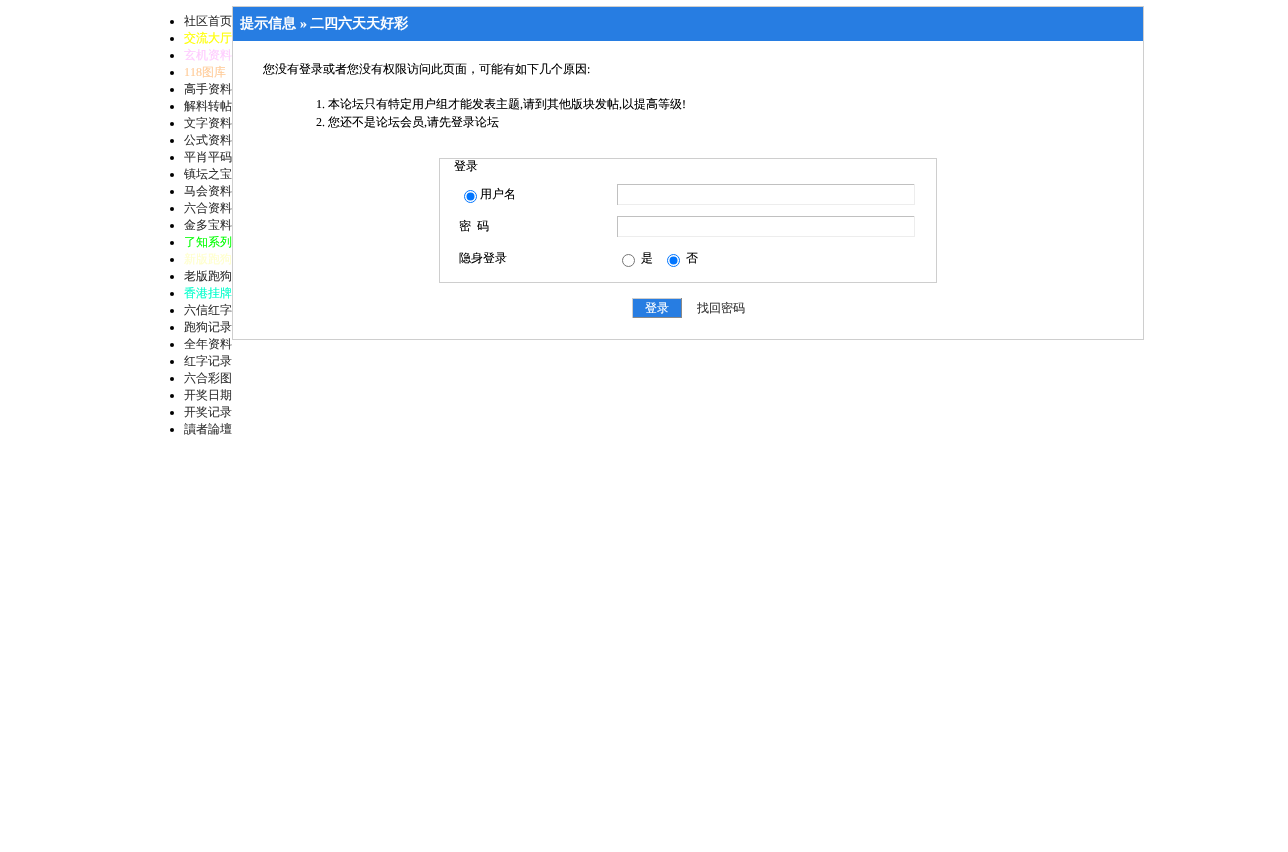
#include "include/core/SkBlurTypes.h"
#include "include/core/SkCanvas.h"
#include "include/core/SkData.h"
#include "include/core/SkFont.h"
#include "include/core/SkFontMgr.h"
#include "include/core/SkImage.h"
#include "include/core/SkMaskFilter.h"
#include "include/core/SkPaint.h"
#include "include/core/SkPathBuilder.h"
#include "include/core/SkTextBlob.h"
#include "include/effects/SkDashPathEffect.h"
#include "include/effects/SkGradientShader.h"
#include "include/utils/SkParsePath.h"

extern sk_sp<SkFontMgr> fontMgr;

static SkFont font(const char* family, int weight, float size, bool italic = false) {
    SkFontStyle style(weight, SkFontStyle::kNormal_Width,
        italic ? SkFontStyle::kItalic_Slant : SkFontStyle::kUpright_Slant);
    SkFont result(fontMgr->matchFamilyStyle(family, style), size);
    result.setSubpixel(true);
    return result;
}

static void drawLabel(SkCanvas* canvas, const char* s, float x, float y, const SkFont& font, SkColor color) {
    SkPaint ink(SkColor4f::FromColor(color));
    ink.setAntiAlias(true);
    canvas->drawString(s, x, y, font, ink);
}

static void fillRect(SkCanvas* canvas, float x, float y, float w, float h, SkColor color) {
    SkPaint ink(SkColor4f::FromColor(color));
    ink.setAntiAlias(true);
    canvas->drawRect(SkRect::MakeXYWH(x, y, w, h), ink);
}

void draw(SkCanvas* canvas) {
    SkPaint paint;
    paint.setAntiAlias(true);
    canvas->clear(0xFFFFFFFF);
    paint.setColor(0xFF000000);
    canvas->drawCircle(172, 22, 2, paint);
    SkFont font1 = font("WenQuanYi Zen Hei", 500, 12);
    drawLabel(canvas, "社区首页", 184, 25, font1, 0xFF333333);
    canvas->drawCircle(172, 39, 2, paint);
    drawLabel(canvas, "交流大厅", 184, 42, font1, 0xFFFFFF00);
    canvas->drawCircle(172, 56, 2, paint);
    drawLabel(canvas, "玄机资料", 184, 59, font1, 0xFFFFCCFF);
    canvas->drawCircle(172, 73, 2, paint);
    SkFont font2 = font("Liberation Serif", 400, 12);
    drawLabel(canvas, "118", 184, 76, font2, 0xFFFFCC99);
    drawLabel(canvas, "图库", 202, 76, font1, 0xFFFFCC99);
    canvas->drawCircle(172, 90, 2, paint);
    drawLabel(canvas, "高手资料", 184, 93, font1, 0xFF333333);
    canvas->drawCircle(172, 107, 2, paint);
    drawLabel(canvas, "解料转帖", 184, 110, font1, 0xFF333333);
    canvas->drawCircle(172, 124, 2, paint);
    drawLabel(canvas, "文字资料", 184, 127, font1, 0xFF333333);
    canvas->drawCircle(172, 141, 2, paint);
    drawLabel(canvas, "公式资料", 184, 144, font1, 0xFF333333);
    canvas->drawCircle(172, 158, 2, paint);
    drawLabel(canvas, "平肖平码", 184, 161, font1, 0xFF333333);
    canvas->drawCircle(172, 175, 2, paint);
    drawLabel(canvas, "镇坛之宝", 184, 178, font1, 0xFF333333);
    canvas->drawCircle(172, 192, 2, paint);
    drawLabel(canvas, "马会资料", 184, 195, font1, 0xFF333333);
    canvas->drawCircle(172, 209, 2, paint);
    drawLabel(canvas, "六合资料", 184, 212, font1, 0xFF333333);
    canvas->drawCircle(172, 226, 2, paint);
    drawLabel(canvas, "金多宝料", 184, 229, font1, 0xFF333333);
    canvas->drawCircle(172, 243, 2, paint);
    drawLabel(canvas, "了知系列", 184, 246, font1, 0xFF00FF00);
    canvas->drawCircle(172, 260, 2, paint);
    drawLabel(canvas, "新版跑狗", 184, 263, font1, 0xFFFFFFCC);
    canvas->drawCircle(172, 277, 2, paint);
    drawLabel(canvas, "老版跑狗", 184, 280, font1, 0xFF333333);
    canvas->drawCircle(172, 294, 2, paint);
    drawLabel(canvas, "香港挂牌", 184, 297, font1, 0xFF00FFCC);
    canvas->drawCircle(172, 311, 2, paint);
    drawLabel(canvas, "六信红字", 184, 314, font1, 0xFF333333);
    canvas->drawCircle(172, 328, 2, paint);
    drawLabel(canvas, "跑狗记录", 184, 331, font1, 0xFF333333);
    canvas->drawCircle(172, 345, 2, paint);
    drawLabel(canvas, "全年资料", 184, 348, font1, 0xFF333333);
    canvas->drawCircle(172, 362, 2, paint);
    drawLabel(canvas, "红字记录", 184, 365, font1, 0xFF333333);
    canvas->drawCircle(172, 379, 2, paint);
    drawLabel(canvas, "六合彩图", 184, 382, font1, 0xFF333333);
    canvas->drawCircle(172, 396, 2, paint);
    drawLabel(canvas, "开奖日期", 184, 399, font1, 0xFF333333);
    canvas->drawCircle(172, 413, 2, paint);
    drawLabel(canvas, "开奖记录", 184, 416, font1, 0xFF333333);
    canvas->drawCircle(172, 430, 2, paint);
    drawLabel(canvas, "讀者論壇", 184, 433, font1, 0xFF333333);
    paint.setStroke(true);
    paint.setStrokeWidth(1);
    paint.setColor(0xFFCECECE);
    canvas->drawRect(SkRect::MakeXYWH(232.5f, 6.5f, 911, 333), paint);
    fillRect(canvas, 233, 7, 910, 34, 0xFF277DE2);
    SkFont font3 = font("WenQuanYi Zen Hei", 700, 14);
    drawLabel(canvas, "提示信息", 240, 28, font3, 0xFFFFFFFF);
    SkFont font4 = font("Liberation Serif", 700, 14);
    drawLabel(canvas, "»", 300, 28, font4, 0xFFFFFFFF);
    drawLabel(canvas, "二四六天天好彩", 310, 28, font3, 0xFFFFFFFF);
    drawLabel(canvas, "您没有登录或者您没有权限访问此页面，可能有如下几个原因", 263, 73, font1, 0xFF000000);
    drawLabel(canvas, ":", 587, 73, font2, 0xFF000000);
    drawLabel(canvas, "1.", 316, 108, font2, 0xFF000000);
    drawLabel(canvas, "本论坛只有特定用户组才能发表主题", 328, 108, font1, 0xFF000000);
    drawLabel(canvas, ",", 520, 108, font2, 0xFF000000);
    drawLabel(canvas, "请到其他版块发帖", 523, 108, font1, 0xFF000000);
    drawLabel(canvas, ",", 619, 108, font2, 0xFF000000);
    drawLabel(canvas, "以提高等级", 622, 108, font1, 0xFF000000);
    drawLabel(canvas, "!", 682, 108, font2, 0xFF000000);
    drawLabel(canvas, "2.", 316, 126, font2, 0xFF000000);
    drawLabel(canvas, "您还不是论坛会员", 328, 126, font1, 0xFF000000);
    drawLabel(canvas, ",", 424, 126, font2, 0xFF000000);
    drawLabel(canvas, "请先登录论坛", 427, 126, font1, 0xFF000000);
    canvas->drawRect(SkRect::MakeXYWH(439.5f, 158.5f, 497, 124), paint);
    drawLabel(canvas, "登录", 454, 170, font1, 0xFF000000);
    paint.setColor(0xFF0075FF);
    canvas->drawCircle(470.5f, 196.5f, 6, paint);
    paint.setStroke(false);
    canvas->drawCircle(470.5f, 196.5f, 4, paint);
    drawLabel(canvas, "用户名", 480, 198, font1, 0xFF000000);
    fillRect(canvas, 617, 184, 298, 1, 0xFFC0C0C0);
    fillRect(canvas, 914, 184, 1, 21, 0xFFEDEDED);
    fillRect(canvas, 617, 204, 298, 1, 0xFFEDEDED);
    fillRect(canvas, 617, 184, 1, 21, 0xFFC0C0C0);
    drawLabel(canvas, "密", 459, 230, font1, 0xFF000000);
    drawLabel(canvas, "码", 477, 230, font1, 0xFF000000);
    fillRect(canvas, 617, 216, 298, 1, 0xFFC0C0C0);
    fillRect(canvas, 914, 216, 1, 21, 0xFFEDEDED);
    fillRect(canvas, 617, 236, 298, 1, 0xFFEDEDED);
    fillRect(canvas, 617, 216, 1, 21, 0xFFC0C0C0);
    drawLabel(canvas, "隐身登录", 459, 262, font1, 0xFF000000);
    paint.setStroke(true);
    paint.setColor(0xFF767676);
    canvas->drawCircle(628.5f, 260.5f, 6, paint);
    drawLabel(canvas, "是", 641, 262, font1, 0xFF000000);
    paint.setColor(0xFF0075FF);
    canvas->drawCircle(673.5f, 260.5f, 6, paint);
    paint.setStroke(false);
    canvas->drawCircle(673.5f, 260.5f, 4, paint);
    drawLabel(canvas, "否", 686, 262, font1, 0xFF000000);
    fillRect(canvas, 633, 299, 48, 18, 0xFF277DE2);
    fillRect(canvas, 632, 298, 50, 1, 0xFFCECECE);
    fillRect(canvas, 681, 298, 1, 20, 0xFF898989);
    fillRect(canvas, 632, 317, 50, 1, 0xFF898989);
    fillRect(canvas, 632, 298, 1, 20, 0xFFCECECE);
    drawLabel(canvas, "登录", 645, 312, font1, 0xFFFFFFFF);
    drawLabel(canvas, "找回密码", 697, 312, font1, 0xFF333333);
}
